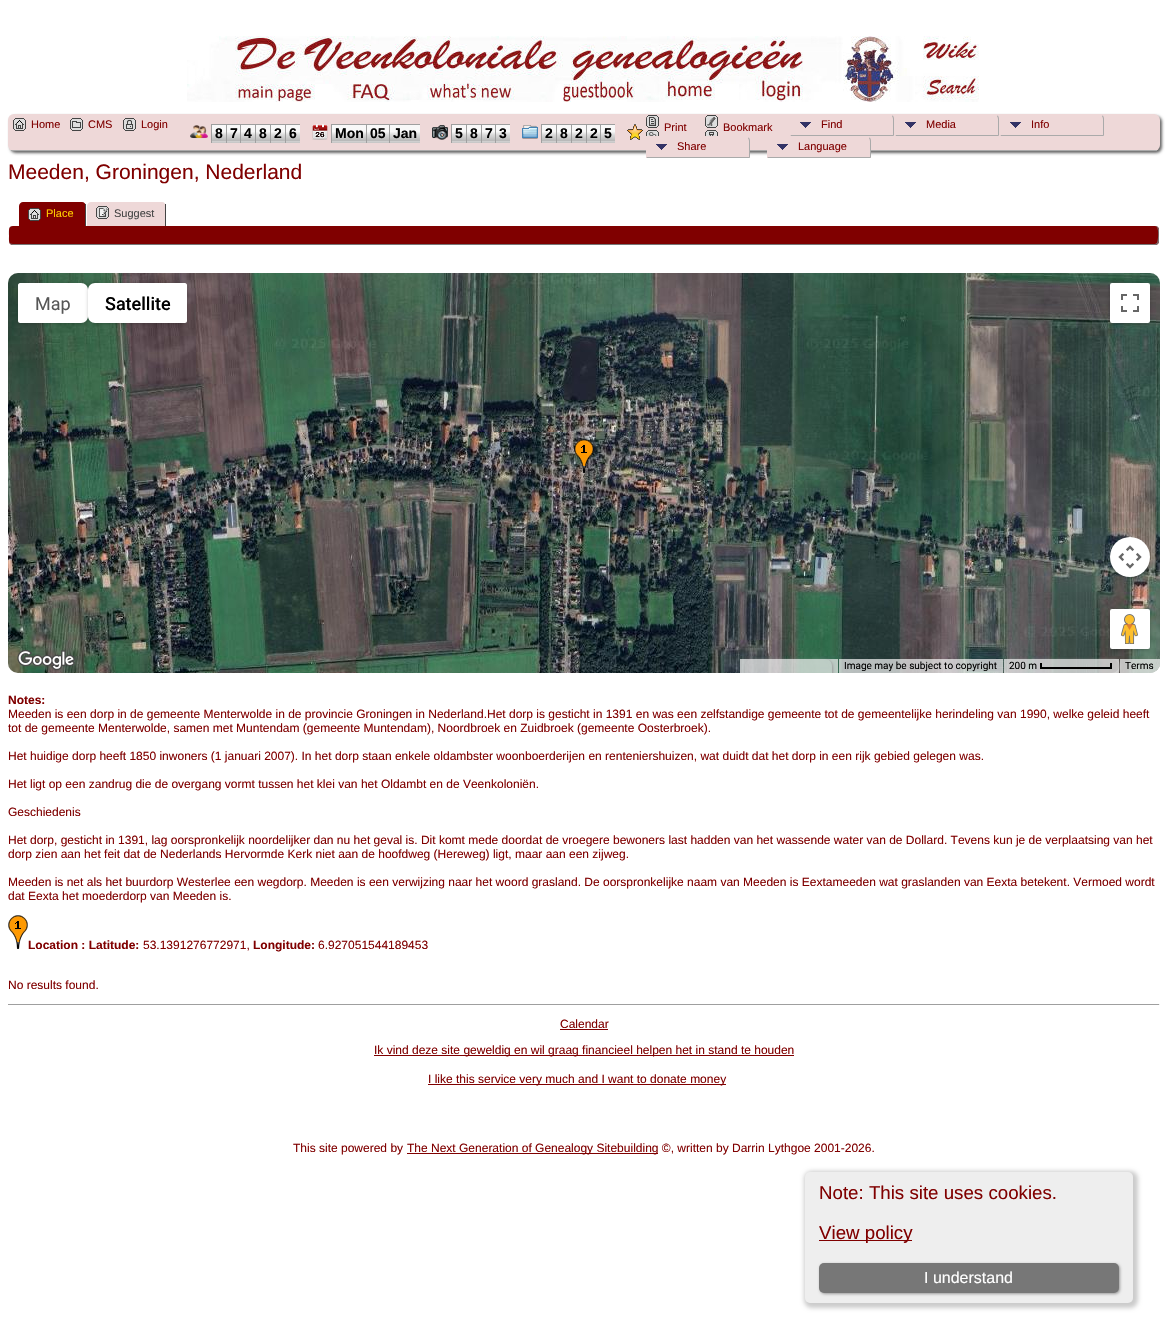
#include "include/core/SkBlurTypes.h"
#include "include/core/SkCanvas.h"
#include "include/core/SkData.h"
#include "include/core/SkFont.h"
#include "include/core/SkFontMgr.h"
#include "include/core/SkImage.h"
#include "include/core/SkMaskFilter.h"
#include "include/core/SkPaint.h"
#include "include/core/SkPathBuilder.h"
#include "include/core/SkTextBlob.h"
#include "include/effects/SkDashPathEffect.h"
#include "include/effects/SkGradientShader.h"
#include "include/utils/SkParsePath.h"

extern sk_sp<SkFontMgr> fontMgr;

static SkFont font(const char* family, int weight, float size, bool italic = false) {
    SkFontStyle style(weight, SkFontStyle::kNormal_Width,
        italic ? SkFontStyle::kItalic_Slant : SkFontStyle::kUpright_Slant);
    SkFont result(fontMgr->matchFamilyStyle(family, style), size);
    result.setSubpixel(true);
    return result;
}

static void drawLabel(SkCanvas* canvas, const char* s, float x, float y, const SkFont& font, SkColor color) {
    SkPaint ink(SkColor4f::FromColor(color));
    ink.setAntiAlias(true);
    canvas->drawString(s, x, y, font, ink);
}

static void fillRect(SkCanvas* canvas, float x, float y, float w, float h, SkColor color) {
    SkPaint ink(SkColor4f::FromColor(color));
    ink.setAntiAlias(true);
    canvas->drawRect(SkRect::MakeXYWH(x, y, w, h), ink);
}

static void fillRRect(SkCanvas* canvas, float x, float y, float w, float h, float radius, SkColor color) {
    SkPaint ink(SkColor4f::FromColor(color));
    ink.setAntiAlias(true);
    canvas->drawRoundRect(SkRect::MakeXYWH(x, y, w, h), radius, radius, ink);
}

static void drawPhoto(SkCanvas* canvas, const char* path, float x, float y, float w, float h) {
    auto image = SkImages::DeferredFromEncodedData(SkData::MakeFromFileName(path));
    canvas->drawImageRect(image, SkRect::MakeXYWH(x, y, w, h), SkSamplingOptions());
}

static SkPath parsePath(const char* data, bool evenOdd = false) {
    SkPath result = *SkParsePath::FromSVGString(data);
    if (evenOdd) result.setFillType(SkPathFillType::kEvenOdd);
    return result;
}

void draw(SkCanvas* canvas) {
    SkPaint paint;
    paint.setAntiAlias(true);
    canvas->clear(0xFFFFFFFF);
    drawPhoto(canvas, "assets/img1.png", 187, 36, 792, 66);
    paint.setColor(0xFF666666);
    paint.setMaskFilter(SkMaskFilter::MakeBlur(kNormal_SkBlurStyle, 1.5f));
    canvas->drawRoundRect(SkRect::MakeXYWH(10, 116, 1152, 37), 6, 6, paint);
    paint.setMaskFilter(nullptr);
    fillRRect(canvas, 8, 114, 1152, 37, 6, 0xFFEED8D8);
    fillRect(canvas, 11, 150, 1146, 1, 0xFFAAAAAA);
    drawPhoto(canvas, "assets/img2.png", 13, 118, 13, 13);
    SkFont font1 = font("Liberation Sans", 400, 11);
    drawLabel(canvas, "Home", 31, 128, font1, 0xFF800000);
    drawPhoto(canvas, "assets/img3.png", 70, 118, 13, 13);
    drawLabel(canvas, "CMS", 88, 128, font1, 0xFF800000);
    drawPhoto(canvas, "assets/img4.png", 123, 118, 13, 13);
    drawLabel(canvas, "Login", 141, 128, font1, 0xFF800000);
    drawPhoto(canvas, "assets/img5.png", 190, 125, 18, 14);
    {
        const SkColor colors[] = {0xFFF8F8F8, 0xFFDBDBDB, 0xFFB8B8B8, 0xFFDBDBDB, 0xFFB8B8B8};
        const float stops[] = {0.36f, 0.54f, 0.87f, 0.94f, 1};
        const SkPoint ends[] = {{219, 125}, {219, 143}};
        paint.setShader(SkGradientShader::MakeLinear(ends, colors, stops, 5, SkTileMode::kClamp));
        paint.setAlpha(255);
    }
    canvas->drawRect(SkRect::MakeXYWH(212, 125, 14, 18), paint);
    fillRect(canvas, 211, 124, 89, 1, 0xFF9F9F9F);
    fillRect(canvas, 211, 124, 1, 19, 0xFF9F9F9F);
    SkFont font2 = font("Liberation Sans", 700, 14);
    drawLabel(canvas, "8", 215, 138, font2, 0xFF000000);
    {
        const SkColor colors[] = {0xFFF8F8F8, 0xFFDBDBDB, 0xFFB8B8B8, 0xFFDBDBDB, 0xFFB8B8B8};
        const float stops[] = {0.36f, 0.54f, 0.87f, 0.94f, 1};
        const SkPoint ends[] = {{234, 125}, {234, 143}};
        paint.setShader(SkGradientShader::MakeLinear(ends, colors, stops, 5, SkTileMode::kClamp));
        paint.setAlpha(255);
    }
    canvas->drawRect(SkRect::MakeXYWH(227, 125, 13, 18), paint);
    fillRect(canvas, 226, 124, 1, 19, 0xFF9F9F9F);
    drawLabel(canvas, "7", 230, 138, font2, 0xFF000000);
    {
        const SkColor colors[] = {0xFFF8F8F8, 0xFFDBDBDB, 0xFFB8B8B8, 0xFFDBDBDB, 0xFFB8B8B8};
        const float stops[] = {0.36f, 0.54f, 0.87f, 0.94f, 1};
        const SkPoint ends[] = {{248, 125}, {248, 143}};
        paint.setShader(SkGradientShader::MakeLinear(ends, colors, stops, 5, SkTileMode::kClamp));
        paint.setAlpha(255);
    }
    canvas->drawRect(SkRect::MakeXYWH(241, 125, 14, 18), paint);
    fillRect(canvas, 240, 124, 1, 19, 0xFF9F9F9F);
    drawLabel(canvas, "4", 244, 138, font2, 0xFF000000);
    {
        const SkColor colors[] = {0xFFF8F8F8, 0xFFDBDBDB, 0xFFB8B8B8, 0xFFDBDBDB, 0xFFB8B8B8};
        const float stops[] = {0.36f, 0.54f, 0.87f, 0.94f, 1};
        const SkPoint ends[] = {{263, 125}, {263, 143}};
        paint.setShader(SkGradientShader::MakeLinear(ends, colors, stops, 5, SkTileMode::kClamp));
        paint.setAlpha(255);
    }
    canvas->drawRect(SkRect::MakeXYWH(256, 125, 14, 18), paint);
    fillRect(canvas, 255, 124, 1, 19, 0xFF9F9F9F);
    drawLabel(canvas, "8", 259, 138, font2, 0xFF000000);
    {
        const SkColor colors[] = {0xFFF8F8F8, 0xFFDBDBDB, 0xFFB8B8B8, 0xFFDBDBDB, 0xFFB8B8B8};
        const float stops[] = {0.36f, 0.54f, 0.87f, 0.94f, 1};
        const SkPoint ends[] = {{278, 125}, {278, 143}};
        paint.setShader(SkGradientShader::MakeLinear(ends, colors, stops, 5, SkTileMode::kClamp));
        paint.setAlpha(255);
    }
    canvas->drawRect(SkRect::MakeXYWH(271, 125, 14, 18), paint);
    fillRect(canvas, 270, 124, 1, 19, 0xFF9F9F9F);
    drawLabel(canvas, "2", 274, 138, font2, 0xFF000000);
    {
        const SkColor colors[] = {0xFFF8F8F8, 0xFFDBDBDB, 0xFFB8B8B8, 0xFFDBDBDB, 0xFFB8B8B8};
        const float stops[] = {0.36f, 0.54f, 0.87f, 0.94f, 1};
        const SkPoint ends[] = {{293, 125}, {293, 143}};
        paint.setShader(SkGradientShader::MakeLinear(ends, colors, stops, 5, SkTileMode::kClamp));
        paint.setAlpha(255);
    }
    canvas->drawRect(SkRect::MakeXYWH(286, 125, 14, 18), paint);
    fillRect(canvas, 285, 124, 1, 19, 0xFF9F9F9F);
    drawLabel(canvas, "6", 289, 138, font2, 0xFF000000);
    drawPhoto(canvas, "assets/img6.png", 312, 124, 16, 16);
    {
        const SkColor colors[] = {0xFFF8F8F8, 0xFFDBDBDB, 0xFFB8B8B8, 0xFFDBDBDB, 0xFFB8B8B8};
        const float stops[] = {0.36f, 0.54f, 0.87f, 0.94f, 1};
        const SkPoint ends[] = {{349, 125}, {349, 143}};
        paint.setShader(SkGradientShader::MakeLinear(ends, colors, stops, 5, SkTileMode::kClamp));
        paint.setAlpha(255);
    }
    canvas->drawRect(SkRect::MakeXYWH(332, 125, 34, 18), paint);
    fillRect(canvas, 331, 124, 89, 1, 0xFF9F9F9F);
    fillRect(canvas, 331, 124, 1, 19, 0xFF9F9F9F);
    drawLabel(canvas, "Mon", 335, 138, font2, 0xFF000000);
    {
        const SkColor colors[] = {0xFFF8F8F8, 0xFFDBDBDB, 0xFFB8B8B8, 0xFFDBDBDB, 0xFFB8B8B8};
        const float stops[] = {0.36f, 0.54f, 0.87f, 0.94f, 1};
        const SkPoint ends[] = {{378, 125}, {378, 143}};
        paint.setShader(SkGradientShader::MakeLinear(ends, colors, stops, 5, SkTileMode::kClamp));
        paint.setAlpha(255);
    }
    canvas->drawRect(SkRect::MakeXYWH(367, 125, 22, 18), paint);
    fillRect(canvas, 366, 124, 1, 19, 0xFF9F9F9F);
    drawLabel(canvas, "05", 370, 138, font2, 0xFF000000);
    {
        const SkColor colors[] = {0xFFF8F8F8, 0xFFDBDBDB, 0xFFB8B8B8, 0xFFDBDBDB, 0xFFB8B8B8};
        const float stops[] = {0.36f, 0.54f, 0.87f, 0.94f, 1};
        const SkPoint ends[] = {{405, 125}, {405, 143}};
        paint.setShader(SkGradientShader::MakeLinear(ends, colors, stops, 5, SkTileMode::kClamp));
        paint.setAlpha(255);
    }
    canvas->drawRect(SkRect::MakeXYWH(390, 125, 30, 18), paint);
    fillRect(canvas, 389, 124, 1, 19, 0xFF9F9F9F);
    drawLabel(canvas, "Jan", 393, 138, font2, 0xFF000000);
    drawPhoto(canvas, "assets/img7.png", 432, 125, 16, 15);
    {
        const SkColor colors[] = {0xFFF8F8F8, 0xFFDBDBDB, 0xFFB8B8B8, 0xFFDBDBDB, 0xFFB8B8B8};
        const float stops[] = {0.36f, 0.54f, 0.87f, 0.94f, 1};
        const SkPoint ends[] = {{459, 125}, {459, 143}};
        paint.setShader(SkGradientShader::MakeLinear(ends, colors, stops, 5, SkTileMode::kClamp));
        paint.setAlpha(255);
    }
    canvas->drawRect(SkRect::MakeXYWH(452, 125, 14, 18), paint);
    fillRect(canvas, 451, 124, 59, 1, 0xFF9F9F9F);
    fillRect(canvas, 451, 124, 1, 19, 0xFF9F9F9F);
    drawLabel(canvas, "5", 455, 138, font2, 0xFF000000);
    {
        const SkColor colors[] = {0xFFF8F8F8, 0xFFDBDBDB, 0xFFB8B8B8, 0xFFDBDBDB, 0xFFB8B8B8};
        const float stops[] = {0.36f, 0.54f, 0.87f, 0.94f, 1};
        const SkPoint ends[] = {{474, 125}, {474, 143}};
        paint.setShader(SkGradientShader::MakeLinear(ends, colors, stops, 5, SkTileMode::kClamp));
        paint.setAlpha(255);
    }
    canvas->drawRect(SkRect::MakeXYWH(467, 125, 14, 18), paint);
    fillRect(canvas, 466, 124, 1, 19, 0xFF9F9F9F);
    drawLabel(canvas, "8", 470, 138, font2, 0xFF000000);
    {
        const SkColor colors[] = {0xFFF8F8F8, 0xFFDBDBDB, 0xFFB8B8B8, 0xFFDBDBDB, 0xFFB8B8B8};
        const float stops[] = {0.36f, 0.54f, 0.87f, 0.94f, 1};
        const SkPoint ends[] = {{489, 125}, {489, 143}};
        paint.setShader(SkGradientShader::MakeLinear(ends, colors, stops, 5, SkTileMode::kClamp));
        paint.setAlpha(255);
    }
    canvas->drawRect(SkRect::MakeXYWH(482, 125, 13, 18), paint);
    fillRect(canvas, 481, 124, 1, 19, 0xFF9F9F9F);
    drawLabel(canvas, "7", 485, 138, font2, 0xFF000000);
    {
        const SkColor colors[] = {0xFFF8F8F8, 0xFFDBDBDB, 0xFFB8B8B8, 0xFFDBDBDB, 0xFFB8B8B8};
        const float stops[] = {0.36f, 0.54f, 0.87f, 0.94f, 1};
        const SkPoint ends[] = {{503, 125}, {503, 143}};
        paint.setShader(SkGradientShader::MakeLinear(ends, colors, stops, 5, SkTileMode::kClamp));
        paint.setAlpha(255);
    }
    canvas->drawRect(SkRect::MakeXYWH(496, 125, 14, 18), paint);
    fillRect(canvas, 495, 124, 1, 19, 0xFF9F9F9F);
    drawLabel(canvas, "3", 499, 138, font2, 0xFF000000);
    drawPhoto(canvas, "assets/img8.png", 522, 125, 16, 14);
    {
        const SkColor colors[] = {0xFFF8F8F8, 0xFFDBDBDB, 0xFFB8B8B8, 0xFFDBDBDB, 0xFFB8B8B8};
        const float stops[] = {0.36f, 0.54f, 0.87f, 0.94f, 1};
        const SkPoint ends[] = {{549, 125}, {549, 143}};
        paint.setShader(SkGradientShader::MakeLinear(ends, colors, stops, 5, SkTileMode::kClamp));
        paint.setAlpha(255);
    }
    canvas->drawRect(SkRect::MakeXYWH(542, 125, 14, 18), paint);
    fillRect(canvas, 541, 124, 74, 1, 0xFF9F9F9F);
    fillRect(canvas, 541, 124, 1, 19, 0xFF9F9F9F);
    drawLabel(canvas, "2", 545, 138, font2, 0xFF000000);
    {
        const SkColor colors[] = {0xFFF8F8F8, 0xFFDBDBDB, 0xFFB8B8B8, 0xFFDBDBDB, 0xFFB8B8B8};
        const float stops[] = {0.36f, 0.54f, 0.87f, 0.94f, 1};
        const SkPoint ends[] = {{564, 125}, {564, 143}};
        paint.setShader(SkGradientShader::MakeLinear(ends, colors, stops, 5, SkTileMode::kClamp));
        paint.setAlpha(255);
    }
    canvas->drawRect(SkRect::MakeXYWH(557, 125, 14, 18), paint);
    fillRect(canvas, 556, 124, 1, 19, 0xFF9F9F9F);
    drawLabel(canvas, "8", 560, 138, font2, 0xFF000000);
    {
        const SkColor colors[] = {0xFFF8F8F8, 0xFFDBDBDB, 0xFFB8B8B8, 0xFFDBDBDB, 0xFFB8B8B8};
        const float stops[] = {0.36f, 0.54f, 0.87f, 0.94f, 1};
        const SkPoint ends[] = {{579, 125}, {579, 143}};
        paint.setShader(SkGradientShader::MakeLinear(ends, colors, stops, 5, SkTileMode::kClamp));
        paint.setAlpha(255);
    }
    canvas->drawRect(SkRect::MakeXYWH(572, 125, 14, 18), paint);
    fillRect(canvas, 571, 124, 1, 19, 0xFF9F9F9F);
    drawLabel(canvas, "2", 575, 138, font2, 0xFF000000);
    {
        const SkColor colors[] = {0xFFF8F8F8, 0xFFDBDBDB, 0xFFB8B8B8, 0xFFDBDBDB, 0xFFB8B8B8};
        const float stops[] = {0.36f, 0.54f, 0.87f, 0.94f, 1};
        const SkPoint ends[] = {{594, 125}, {594, 143}};
        paint.setShader(SkGradientShader::MakeLinear(ends, colors, stops, 5, SkTileMode::kClamp));
        paint.setAlpha(255);
    }
    canvas->drawRect(SkRect::MakeXYWH(587, 125, 13, 18), paint);
    fillRect(canvas, 586, 124, 1, 19, 0xFF9F9F9F);
    drawLabel(canvas, "2", 590, 138, font2, 0xFF000000);
    {
        const SkColor colors[] = {0xFFF8F8F8, 0xFFDBDBDB, 0xFFB8B8B8, 0xFFDBDBDB, 0xFFB8B8B8};
        const float stops[] = {0.36f, 0.54f, 0.87f, 0.94f, 1};
        const SkPoint ends[] = {{608, 125}, {608, 143}};
        paint.setShader(SkGradientShader::MakeLinear(ends, colors, stops, 5, SkTileMode::kClamp));
        paint.setAlpha(255);
    }
    canvas->drawRect(SkRect::MakeXYWH(601, 125, 14, 18), paint);
    fillRect(canvas, 600, 124, 1, 19, 0xFF9F9F9F);
    drawLabel(canvas, "5", 604, 138, font2, 0xFF000000);
    drawPhoto(canvas, "assets/img9.png", 627, 124, 16, 16);
    drawPhoto(canvas, "assets/img10.png", 646, 115, 13, 21);
    drawLabel(canvas, "Print", 664, 131, font1, 0xFF800000);
    drawPhoto(canvas, "assets/img11.png", 705, 115, 13, 21);
    drawLabel(canvas, "Bookmark", 723, 131, font1, 0xFF800000);
    drawPhoto(canvas, "assets/img12.png", 800, 122, 11, 6);
    paint.setShader(nullptr);
    paint.setColor(0xFFAAAAAA);
    canvas->drawPath(parsePath("M894 136V119C894 117.5 893.5 116 892.5 115.5L892 116C892.5 117 893 118 893 119V135Z"), paint);
    canvas->drawPath(parsePath("M894 136L893 135H791L790 136Z"), paint);
    paint.setColor(0xFFEED8D8);
    canvas->drawPath(parsePath("M790 136L791 135V119C791 118 791.5 117 792 116L791.5 115.5C790.5 116 790 117.5 790 119Z"), paint);
    drawLabel(canvas, "Find", 821, 128, font1, 0xFF800000);
    drawPhoto(canvas, "assets/img12.png", 905, 122, 11, 6);
    paint.setColor(0xFFAAAAAA);
    canvas->drawPath(parsePath("M999 136V119C999 117.5 998.5 116 997.5 115.5L997 116C997.5 117 998 118 998 119V135Z"), paint);
    canvas->drawPath(parsePath("M999 136L998 135H896L895 136Z"), paint);
    paint.setColor(0xFFEED8D8);
    canvas->drawPath(parsePath("M895 136L896 135V119C896 118 896.5 117 897 116L896.5 115.5C895.5 116 895 117.5 895 119Z"), paint);
    drawLabel(canvas, "Media", 926, 128, font1, 0xFF800000);
    drawPhoto(canvas, "assets/img12.png", 1010, 122, 11, 6);
    paint.setColor(0xFFAAAAAA);
    canvas->drawPath(parsePath("M1104 136V119C1104 117.5 1103.5 116 1102.5 115.5L1102 116C1102.5 117 1103 118 1103 119V135Z"), paint);
    canvas->drawPath(parsePath("M1104 136L1103 135H1001L1000 136Z"), paint);
    paint.setColor(0xFFEED8D8);
    canvas->drawPath(parsePath("M1000 136L1001 135V119C1001 118 1001.5 117 1002 116L1001.5 115.5C1000.5 116 1000 117.5 1000 119Z"), paint);
    drawLabel(canvas, "Info", 1031, 128, font1, 0xFF800000);
    canvas->drawPath(parsePath("M651 136H745C748 136 750 138 750 141V158H646V141C646 138 648 136 651 136Z"), paint);
    drawPhoto(canvas, "assets/img12.png", 656, 144, 11, 6);
    paint.setColor(0xFFAAAAAA);
    canvas->drawPath(parsePath("M750 158V141C750 139.5 749.5 138 748.5 137.5L748 138C748.5 139 749 140 749 141V157Z"), paint);
    canvas->drawPath(parsePath("M750 158L749 157H647L646 158Z"), paint);
    paint.setColor(0xFFEED8D8);
    canvas->drawPath(parsePath("M646 158L647 157V141C647 140 647.5 139 648 138L647.5 137.5C646.5 138 646 139.5 646 141Z"), paint);
    drawLabel(canvas, "Share", 677, 150, font1, 0xFF800000);
    canvas->drawPath(parsePath("M772 136H866C869 136 871 138 871 141V158H767V141C767 138 769 136 772 136Z"), paint);
    drawPhoto(canvas, "assets/img12.png", 777, 144, 11, 6);
    paint.setColor(0xFFAAAAAA);
    canvas->drawPath(parsePath("M871 158V141C871 139.5 870.5 138 869.5 137.5L869 138C869.5 139 870 140 870 141V157Z"), paint);
    canvas->drawPath(parsePath("M871 158L870 157H768L767 158Z"), paint);
    paint.setColor(0xFFEED8D8);
    canvas->drawPath(parsePath("M767 158L768 157V141C768 140 768.5 139 769 138L768.5 137.5C767.5 138 767 139.5 767 141Z"), paint);
    drawLabel(canvas, "Language", 798, 150, font1, 0xFF800000);
    SkFont font3 = font("Liberation Sans", 400, 21);
    drawLabel(canvas, "Meeden, Groningen, Nederland", 8, 179, font3, 0xFF800000);
    paint.setColor(0xFF800000);
    canvas->drawPath(parsePath("M23 202H82C84 202 86 204 86 206V226H19V206C19 204 21 202 23 202Z"), paint);
    fillRect(canvas, 85, 204, 1, 22, 0xFF444444);
    drawPhoto(canvas, "assets/img13.png", 28, 208, 13, 13);
    drawLabel(canvas, "Place", 46, 217, font1, 0xFFFFCC00);
    paint.setColor(0xFFEED8D8);
    canvas->drawPath(parsePath("M91 202H162C164 202 166 204 166 206V226H87V206C87 204 89 202 91 202Z"), paint);
    fillRect(canvas, 165, 204, 1, 22, 0xFF444444);
    drawPhoto(canvas, "assets/img14.png", 96, 206, 13, 13);
    drawLabel(canvas, "Suggest", 114, 217, font1, 0xFF444444);
    fillRRect(canvas, 9, 226, 1150, 19, 4, 0xFF800000);
    paint.setColor(0xFF777777);
    canvas->drawPath(parsePath("M13 226H1155C1157 226 1159 228 1159 230V241C1159 243 1157 245 1155 245H13C11 245 9 243 9 241V230C9 228 11 226 13 226ZM13 226H1155C1160 226 1158 242 1157 243L1155 244H13C8 244 9 239 9 236C9 232 8 226 13 226Z", true), paint);
    fillRRect(canvas, 8, 273, 1152, 400, 10, 0xFFE5E3DF);
    drawPhoto(canvas, "assets/img15.png", 8, 273, 188, 159);
    drawPhoto(canvas, "assets/img16.png", 196, 273, 256, 159);
    drawPhoto(canvas, "assets/img17.png", 452, 273, 256, 159);
    drawPhoto(canvas, "assets/img18.png", 708, 273, 256, 159);
    drawPhoto(canvas, "assets/img19.png", 964, 273, 196, 159);
    drawPhoto(canvas, "assets/img20.png", 8, 432, 188, 241);
    drawPhoto(canvas, "assets/img21.png", 196, 432, 256, 241);
    drawPhoto(canvas, "assets/img22.png", 452, 432, 256, 241);
    drawPhoto(canvas, "assets/img23.png", 708, 432, 256, 241);
    drawPhoto(canvas, "assets/img24.png", 964, 432, 196, 241);
    drawPhoto(canvas, "assets/img25.png", 574, 439, 20, 34);
    paint.setColor(0x4D000000);
    paint.setMaskFilter(SkMaskFilter::MakeBlur(kNormal_SkBlurStyle, 2));
    canvas->drawRoundRect(SkRect::MakeXYWH(19, 285, 68, 38), 6, 6, paint);
    paint.setMaskFilter(nullptr);
    paint.setColor(0xFFFFFFFF);
    canvas->drawPath(parsePath("M20 283H81C85 283 88 286 88 290V316C88 320 85 323 81 323H20C19 323 18 322 18 321V285C18 284 19 283 20 283Z"), paint);
    SkFont font4 = font("Roboto", 400, 18);
    drawLabel(canvas, "Map", 35, 310, font4, 0xFF565656);
    paint.setColor(0x4D000000);
    paint.setMaskFilter(SkMaskFilter::MakeBlur(kNormal_SkBlurStyle, 2));
    canvas->drawRoundRect(SkRect::MakeXYWH(89, 285, 97, 38), 6, 6, paint);
    paint.setMaskFilter(nullptr);
    paint.setColor(0xFFFFFFFF);
    canvas->drawPath(parsePath("M95 283H185C186 283 187 284 187 285V321C187 322 186 323 185 323H95C91 323 88 320 88 316V290C88 286 91 283 95 283Z"), paint);
    SkFont font5 = font("Roboto", 500, 18);
    drawLabel(canvas, "Satellite", 105, 310, font5, 0xFF000000);
    paint.setColor(0x4D000000);
    paint.setMaskFilter(SkMaskFilter::MakeBlur(kNormal_SkBlurStyle, 2));
    canvas->drawRoundRect(SkRect::MakeXYWH(1111, 285, 38, 38), 1, 1, paint);
    paint.setMaskFilter(nullptr);
    fillRRect(canvas, 1110, 283, 40, 40, 2, 0xFFFFFFFF);
    drawPhoto(canvas, "assets/img26.png", 1121, 294, 18, 18);
    paint.setMaskFilter(SkMaskFilter::MakeBlur(kNormal_SkBlurStyle, 2));
    canvas->drawRoundRect(SkRect::MakeXYWH(1111, 539, 38, 38), 19, 19, paint);
    paint.setMaskFilter(nullptr);
    paint.setColor(0xFFFFFFFF);
    canvas->drawCircle(1130, 557, 20, paint);
    drawPhoto(canvas, "assets/img27.png", 1118, 545, 24, 24);
    paint.setColor(0x4D000000);
    paint.setMaskFilter(SkMaskFilter::MakeBlur(kNormal_SkBlurStyle, 2));
    canvas->drawRoundRect(SkRect::MakeXYWH(1111, 611, 38, 38), 1, 1, paint);
    paint.setMaskFilter(nullptr);
    fillRRect(canvas, 1110, 609, 40, 40, 2, 0xFFFFFFFF);
    drawPhoto(canvas, "assets/img28.png", 1121, 614, 17, 30);
    drawPhoto(canvas, "assets/img29.png", 17, 650, 58, 21);
    fillRect(canvas, 740, 659, 98, 14, 0xB3F5F5F5);
    canvas->save();
    canvas->clipPath(parsePath("M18 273H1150C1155.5 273 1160 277.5 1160 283V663C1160 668.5 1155.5 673 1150 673H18C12.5 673 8 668.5 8 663V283C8 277.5 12.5 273 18 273Z"), true);
    canvas->clipPath(parsePath("M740 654H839V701H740ZM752 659H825C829 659 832 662 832 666V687C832 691 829 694 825 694H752C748 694 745 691 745 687V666C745 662 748 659 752 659Z", true), true);
    paint.setColor(0xFF999999);
    paint.setMaskFilter(SkMaskFilter::MakeBlur(kNormal_SkBlurStyle, 1.5f));
    canvas->drawRoundRect(SkRect::MakeXYWH(746, 660, 87, 35), 7, 7, paint);
    paint.setMaskFilter(nullptr);
    canvas->restore();
    canvas->save();
    canvas->clipPath(parsePath("M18 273H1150C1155.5 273 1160 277.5 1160 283V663C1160 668.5 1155.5 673 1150 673H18C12.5 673 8 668.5 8 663V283C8 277.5 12.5 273 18 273Z"), true);
    canvas->clipPath(parsePath("M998 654H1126V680H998ZM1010 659H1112C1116 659 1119 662 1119 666C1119 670 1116 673 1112 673H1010C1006 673 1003 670 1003 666C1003 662 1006 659 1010 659Z", true), true);
    paint.setMaskFilter(SkMaskFilter::MakeBlur(kNormal_SkBlurStyle, 1.5f));
    canvas->drawRoundRect(SkRect::MakeXYWH(1004, 660, 116, 14), 7, 7, paint);
    paint.setMaskFilter(nullptr);
    canvas->restore();
    fillRect(canvas, 839, 659, 164, 14, 0xB3F5F5F5);
    SkFont font6 = font("Roboto", 400, 10);
    drawLabel(canvas, "Image may be subject to copyright", 844, 669, font6, 0xFF000000);
    fillRect(canvas, 1004, 659, 115, 14, 0xB3F5F5F5);
    drawLabel(canvas, "200 m", 1009, 669, font6, 0xFF000000);
    fillRect(canvas, 1040, 667, 72, 2, 0xFF000000);
    fillRect(canvas, 1040, 663, 2, 6, 0xFF000000);
    fillRect(canvas, 1110, 663, 2, 6, 0xFF000000);
    paint.setColor(0xB3F5F5F5);
    canvas->drawPath(parsePath("M1120 659H1160V663C1160 668.5 1155.5 673 1150 673H1120Z"), paint);
    drawLabel(canvas, "Terms", 1125, 669, font6, 0xFF000000);
    SkFont font7 = font("Liberation Sans", 700, 12);
    drawLabel(canvas, "Notes:", 8, 704, font7, 0xFF800000);
    SkFont font8 = font("Liberation Sans", 400, 12);
    drawLabel(canvas, "Meeden is een dorp in de gemeente Menterwolde in de provincie Groningen in Nederland.Het dorp is gesticht in 1391 en was een zelfstandige gemeente tot de gemeentelijke herindeling van 1990, welke geleid heeft", 8, 718, font8, 0xFF800000);
    drawLabel(canvas, "tot de gemeente Menterwolde, samen met Muntendam (gemeente Muntendam), Noordbroek en Zuidbroek (gemeente Oosterbroek).", 8, 732, font8, 0xFF800000);
    drawLabel(canvas, "Het huidige dorp heeft 1850 inwoners (1 januari 2007). In het dorp staan enkele oldambster woonboerderijen en renteniershuizen, wat duidt dat het dorp in een rijk gebied gelegen was.", 8, 760, font8, 0xFF800000);
    drawLabel(canvas, "Het ligt op een zandrug die de overgang vormt tussen het klei van het Oldambt en de Veenkoloniën.", 8, 788, font8, 0xFF800000);
    drawLabel(canvas, "Geschiedenis", 8, 816, font8, 0xFF800000);
    drawLabel(canvas, "Het dorp, gesticht in 1391, lag oorspronkelijk noordelijker dan nu het geval is. Dit komt mede doordat de vroegere bewoners last hadden van het wassende water van de Dollard. Tevens kun je de verplaatsing van het", 8, 844, font8, 0xFF800000);
    drawLabel(canvas, "dorp zien aan het feit dat de Nederlands Hervormde Kerk niet aan de hoofdweg (Hereweg) ligt, maar aan een zijweg.", 8, 858, font8, 0xFF800000);
    drawLabel(canvas, "Meeden is net als het buurdorp Westerlee een wegdorp. Meeden is een verwijzing naar het woord grasland. De oorspronkelijke naam van Meeden is Eextameeden wat graslanden van Eexta betekent. Vermoed wordt", 8, 886, font8, 0xFF800000);
    drawLabel(canvas, "dat Eexta het moederdorp van Meeden is.", 8, 900, font8, 0xFF800000);
    drawPhoto(canvas, "assets/img30.png", 8, 915, 20, 34);
    drawLabel(canvas, "Location : Latitude:", 28, 949, font7, 0xFF800000);
    drawLabel(canvas, "53.1391276772971,", 143, 949, font8, 0xFF800000);
    drawLabel(canvas, "Longitude:", 253, 949, font7, 0xFF800000);
    drawLabel(canvas, "6.927051544189453", 318, 949, font8, 0xFF800000);
    drawLabel(canvas, "No results found.", 8, 989, font8, 0xFF800000);
    fillRect(canvas, 8, 1004, 1152, 1, 0xFF9F9F9F);
    fillRect(canvas, 1159, 1004, 1, 1, 0xFFEEEEEE);
    drawLabel(canvas, "Calendar", 560, 1028, font8, 0xFF800000);
    fillRect(canvas, 560, 1029, 48, 1, 0xFF800000);
    fillRect(canvas, 374, 1055, 420, 1, 0xFF800000);
    drawLabel(canvas, "Ik vind deze site geweldig en wil graag financieel helpen het in stand te houden", 374, 1054, font8, 0xFF800000);
    fillRect(canvas, 428, 1084, 298, 1, 0xFF800000);
    drawLabel(canvas, "I like this service very much and I want to donate money", 428, 1083, font8, 0xFF800000);
    drawLabel(canvas, "This site powered by", 293, 1152, font8, 0xFF800000);
    fillRect(canvas, 407, 1153, 251, 1, 0xFF800000);
    drawLabel(canvas, "The Next Generation of Genealogy Sitebuilding ©, written by Darrin Lythgoe 2001-2026.", 407, 1152, font8, 0xFF800000);
    paint.setColor(0x33000000);
    paint.setMaskFilter(SkMaskFilter::MakeBlur(kNormal_SkBlurStyle, 2));
    canvas->drawRoundRect(SkRect::MakeXYWH(804, 1171, 334, 137), 8, 8, paint);
    paint.setMaskFilter(nullptr);
    fillRRect(canvas, 805, 1172, 328, 131, 5, 0xFFEEEEEE);
    SkFont font9 = font("Liberation Sans", 400, 18.7f);
    drawLabel(canvas, "Note: This site uses cookies.", 819, 1199, font9, 0xFF800000);
    fillRect(canvas, 819, 1240, 93, 1, 0xFF800000);
    drawLabel(canvas, "View policy", 819, 1239, font9, 0xFF800000);
    paint.setColor(0xFF999999);
    paint.setMaskFilter(SkMaskFilter::MakeBlur(kNormal_SkBlurStyle, 1.5f));
    canvas->drawRoundRect(SkRect::MakeXYWH(820, 1264, 300, 30), 5, 5, paint);
    paint.setMaskFilter(nullptr);
    fillRRect(canvas, 819, 1263, 300, 30, 5, 0xFF777777);
    SkFont font10 = font("Liberation Sans", 400, 16);
    drawLabel(canvas, "I understand", 924, 1283, font10, 0xFFFFFFFF);
}
